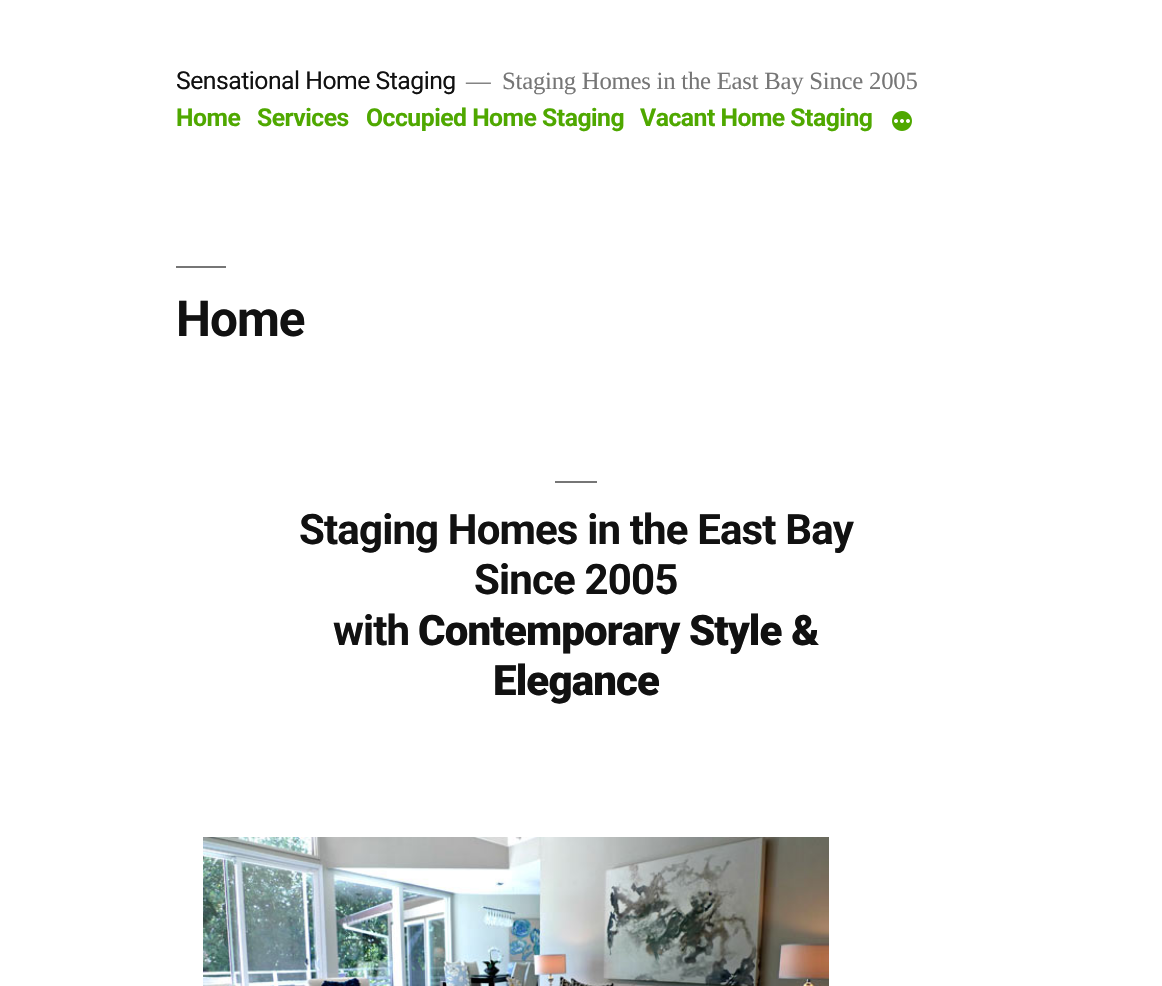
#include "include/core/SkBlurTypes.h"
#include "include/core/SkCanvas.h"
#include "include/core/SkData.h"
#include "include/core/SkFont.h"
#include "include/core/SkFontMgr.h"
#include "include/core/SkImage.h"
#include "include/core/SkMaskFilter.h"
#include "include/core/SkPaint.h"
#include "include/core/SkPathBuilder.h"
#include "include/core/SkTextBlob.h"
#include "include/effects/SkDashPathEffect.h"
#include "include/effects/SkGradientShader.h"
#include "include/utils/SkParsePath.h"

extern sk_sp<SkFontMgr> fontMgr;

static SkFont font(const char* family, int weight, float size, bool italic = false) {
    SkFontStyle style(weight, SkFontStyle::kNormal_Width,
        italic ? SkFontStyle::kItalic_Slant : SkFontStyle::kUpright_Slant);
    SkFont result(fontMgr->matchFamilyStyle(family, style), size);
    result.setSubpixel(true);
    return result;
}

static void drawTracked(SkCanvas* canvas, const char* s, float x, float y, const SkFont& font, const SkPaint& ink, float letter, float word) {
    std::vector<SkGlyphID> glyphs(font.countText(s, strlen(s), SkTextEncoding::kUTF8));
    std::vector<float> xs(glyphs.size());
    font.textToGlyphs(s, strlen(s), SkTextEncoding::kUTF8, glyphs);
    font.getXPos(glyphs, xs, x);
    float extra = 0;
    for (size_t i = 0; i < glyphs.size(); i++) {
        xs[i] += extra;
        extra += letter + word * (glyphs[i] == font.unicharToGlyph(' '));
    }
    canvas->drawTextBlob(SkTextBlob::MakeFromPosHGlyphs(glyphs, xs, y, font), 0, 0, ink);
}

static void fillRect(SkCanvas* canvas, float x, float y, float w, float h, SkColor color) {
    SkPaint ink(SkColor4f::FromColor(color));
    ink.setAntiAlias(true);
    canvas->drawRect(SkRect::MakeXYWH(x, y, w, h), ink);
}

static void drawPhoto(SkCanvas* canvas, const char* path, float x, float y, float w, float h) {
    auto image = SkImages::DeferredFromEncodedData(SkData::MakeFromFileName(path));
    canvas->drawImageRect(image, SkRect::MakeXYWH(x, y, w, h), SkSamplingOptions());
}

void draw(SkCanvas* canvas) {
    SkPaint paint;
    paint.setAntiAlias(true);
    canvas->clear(0xFFFFFFFF);
    SkFont font1 = font("Roboto", 400, 24.75f);
    paint.setColor(0xFF111111);
    drawTracked(canvas, "Sensational Home Staging", 176, 89, font1, paint, -0.5f, 0);
    SkFont font2 = font("Liberation Serif", 400, 24.75f);
    paint.setColor(0xFF767676);
    drawTracked(canvas, "—", 466, 89, font2, paint, -0.25f, 0);
    drawTracked(canvas, "Staging Homes in the East Bay Since 2005", 502, 89, font2, paint, -0.25f, 0);
    SkFont font3 = font("Roboto", 700, 24.75f);
    paint.setColor(0xFF4FA800);
    drawTracked(canvas, "Home", 176, 126, font3, paint, -0.5f, 0);
    drawTracked(canvas, "Services", 257, 126, font3, paint, -0.5f, 0);
    drawTracked(canvas, "Occupied Home Staging", 366, 126, font3, paint, -0.5f, 0);
    drawTracked(canvas, "Vacant Home Staging", 640, 126, font3, paint, -0.5f, 0);
    drawPhoto(canvas, "assets/img1.png", 892, 111, 20, 20);
    fillRect(canvas, 176, 266, 50, 2, 0xFF767676);
    SkFont font4 = font("Roboto", 700, 49.5f);
    paint.setColor(0xFF111111);
    drawTracked(canvas, "Home", 176, 336, font4, paint, -1, 0);
    fillRect(canvas, 555, 481, 42, 2, 0xFF767676);
    SkFont font5 = font("Roboto", 700, 42);
    drawTracked(canvas, "Staging Homes in the East Bay", 299, 544, font5, paint, -0.85f, 0);
    drawTracked(canvas, "Since 2005", 474, 594, font5, paint, -0.85f, 0);
    drawTracked(canvas, "with", 333, 645, font5, paint, -0.85f, 0);
    SkFont font6 = font("Roboto", 900, 42);
    drawTracked(canvas, "Contemporary Style &", 418, 645, font6, paint, -0.85f, 0);
    drawTracked(canvas, "Elegance", 493, 695, font6, paint, -0.85f, 0);
    drawPhoto(canvas, "assets/img2.png", 203, 837, 626, 149);
}
